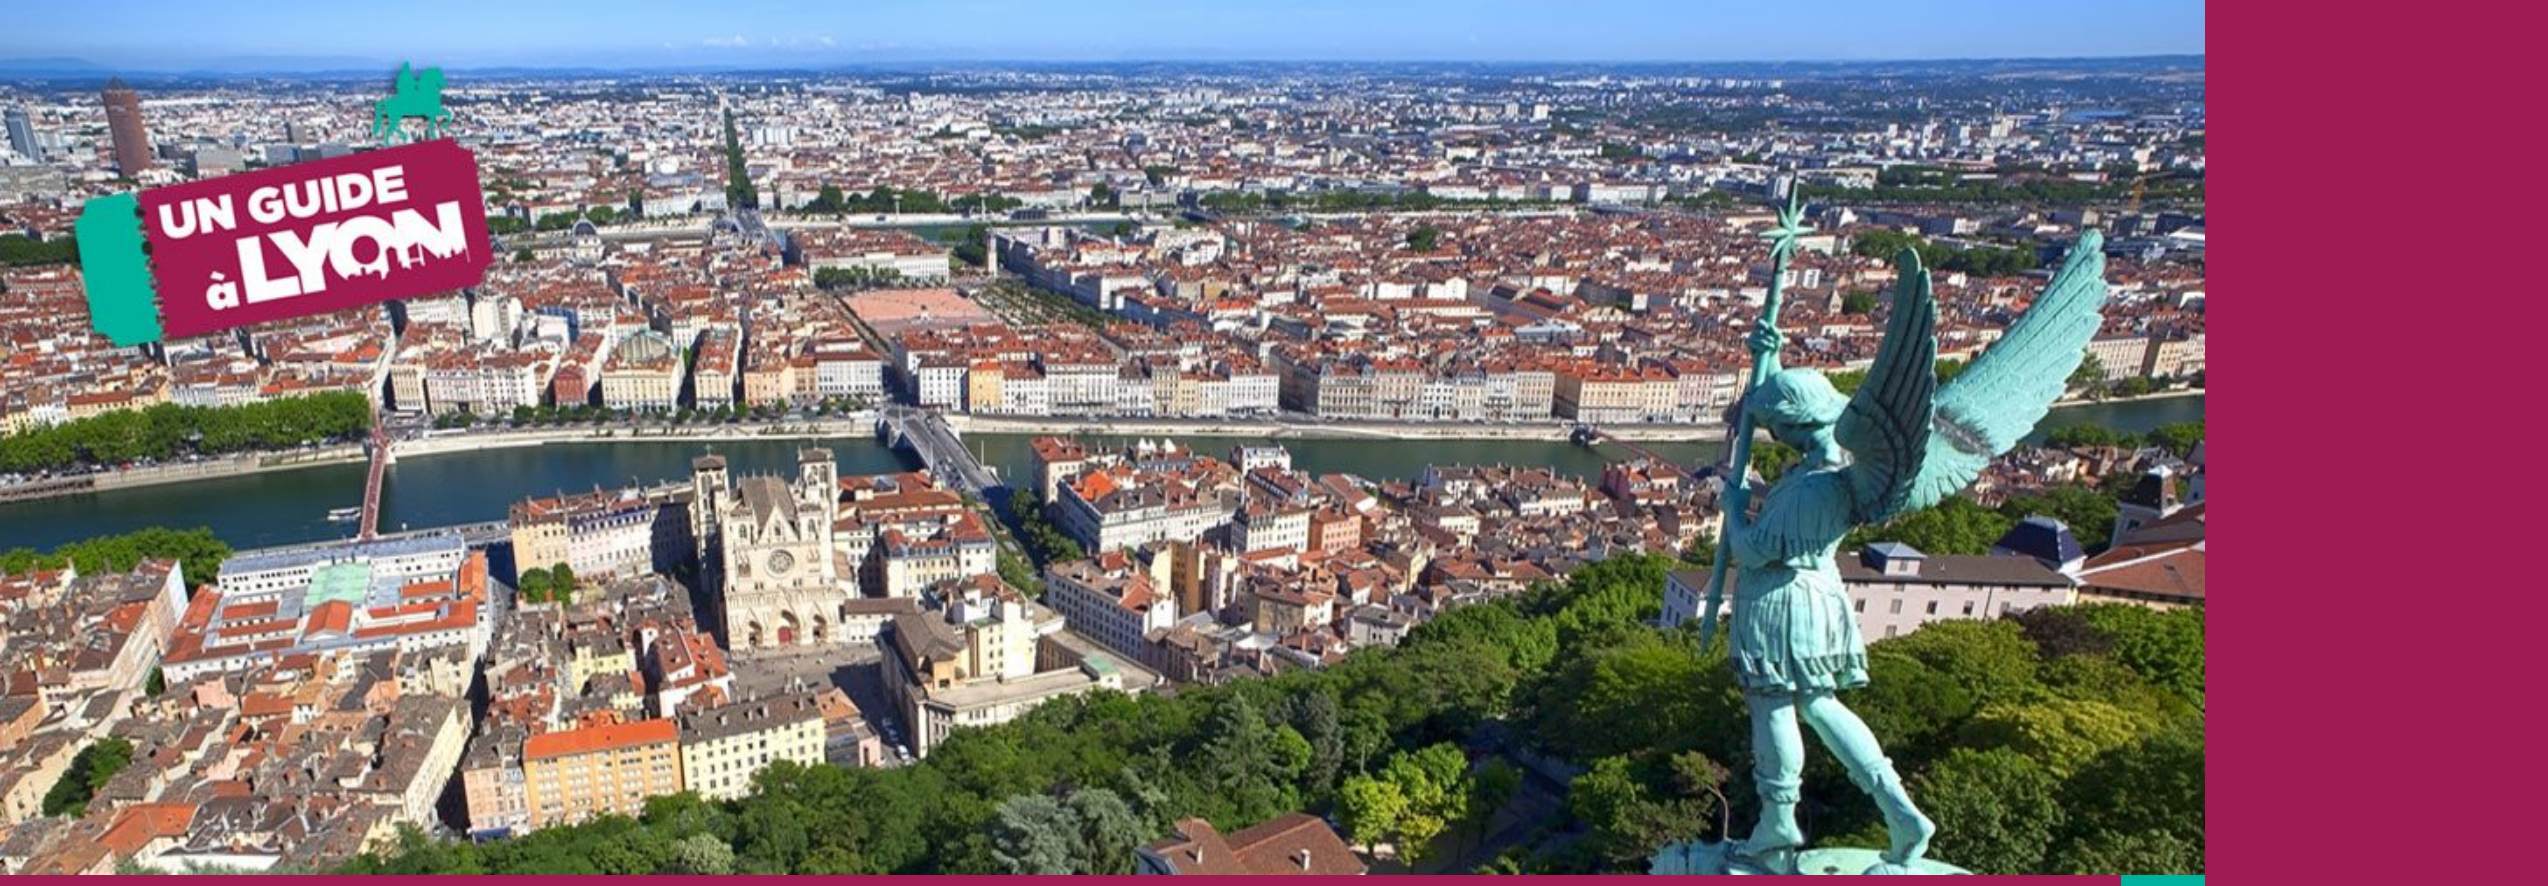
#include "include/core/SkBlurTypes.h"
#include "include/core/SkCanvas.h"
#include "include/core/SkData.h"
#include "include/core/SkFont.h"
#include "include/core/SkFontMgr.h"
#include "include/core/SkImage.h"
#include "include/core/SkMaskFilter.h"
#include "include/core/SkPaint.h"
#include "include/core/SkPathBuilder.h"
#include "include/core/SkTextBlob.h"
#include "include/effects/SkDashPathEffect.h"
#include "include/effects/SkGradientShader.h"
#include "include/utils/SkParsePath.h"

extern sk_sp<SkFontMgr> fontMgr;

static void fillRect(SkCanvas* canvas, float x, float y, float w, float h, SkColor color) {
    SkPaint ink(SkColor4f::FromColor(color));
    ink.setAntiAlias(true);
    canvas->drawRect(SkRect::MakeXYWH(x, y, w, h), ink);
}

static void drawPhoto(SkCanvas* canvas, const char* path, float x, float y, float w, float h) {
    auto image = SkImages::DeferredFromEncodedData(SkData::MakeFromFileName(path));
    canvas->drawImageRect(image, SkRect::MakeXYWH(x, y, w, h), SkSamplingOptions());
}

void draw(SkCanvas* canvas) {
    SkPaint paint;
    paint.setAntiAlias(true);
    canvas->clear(0xFF9F1C52);
    drawPhoto(canvas, "assets/img1.png", 0, 0, 2205, 875);
    fillRect(canvas, 2121, 875, 84, 11, 0xFF00B19D);
}
